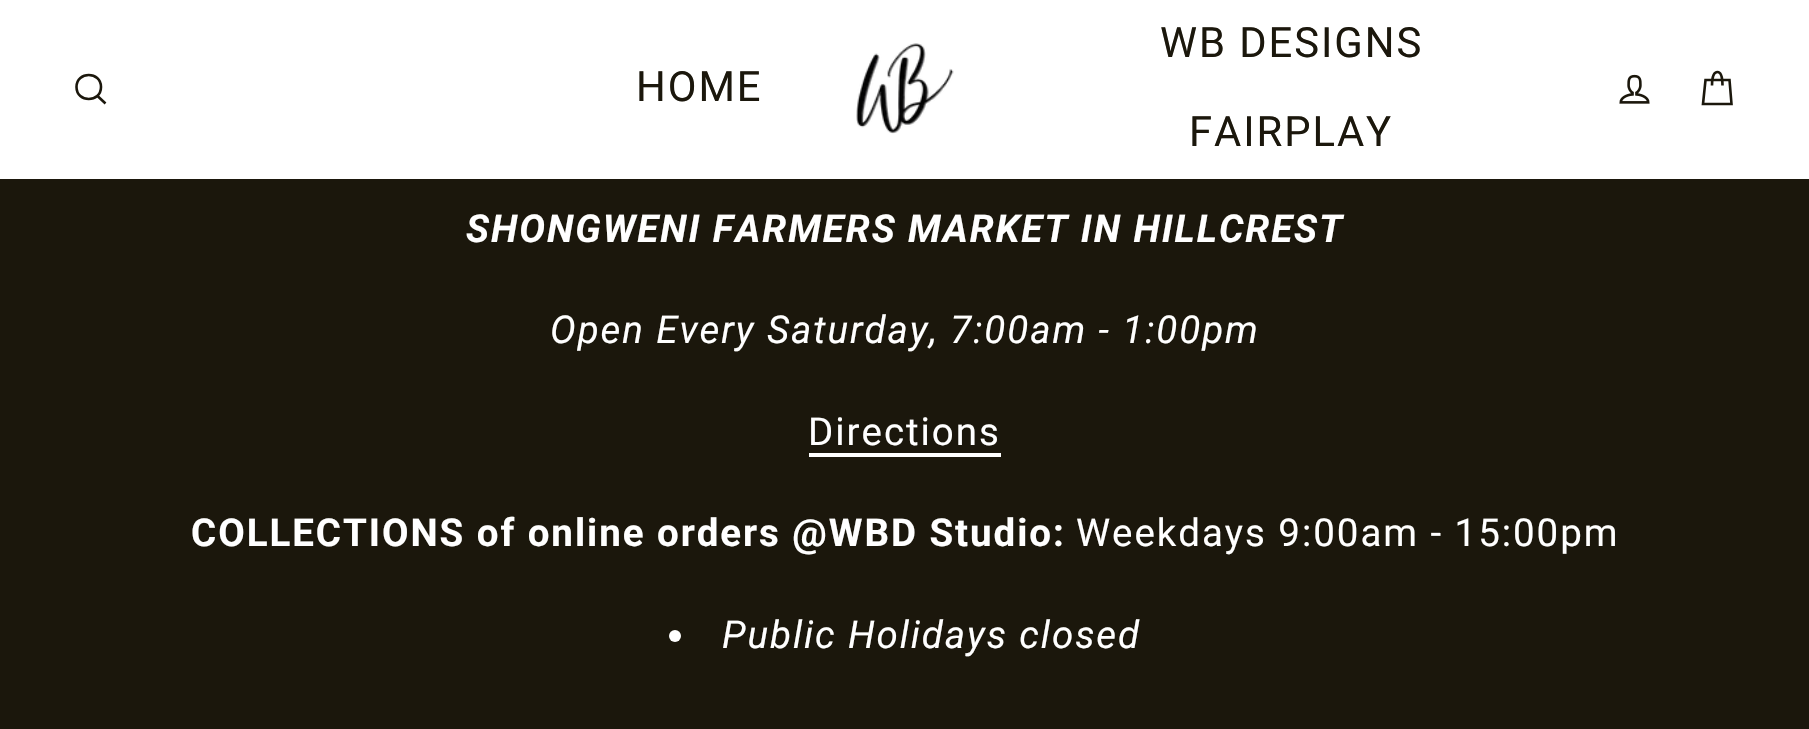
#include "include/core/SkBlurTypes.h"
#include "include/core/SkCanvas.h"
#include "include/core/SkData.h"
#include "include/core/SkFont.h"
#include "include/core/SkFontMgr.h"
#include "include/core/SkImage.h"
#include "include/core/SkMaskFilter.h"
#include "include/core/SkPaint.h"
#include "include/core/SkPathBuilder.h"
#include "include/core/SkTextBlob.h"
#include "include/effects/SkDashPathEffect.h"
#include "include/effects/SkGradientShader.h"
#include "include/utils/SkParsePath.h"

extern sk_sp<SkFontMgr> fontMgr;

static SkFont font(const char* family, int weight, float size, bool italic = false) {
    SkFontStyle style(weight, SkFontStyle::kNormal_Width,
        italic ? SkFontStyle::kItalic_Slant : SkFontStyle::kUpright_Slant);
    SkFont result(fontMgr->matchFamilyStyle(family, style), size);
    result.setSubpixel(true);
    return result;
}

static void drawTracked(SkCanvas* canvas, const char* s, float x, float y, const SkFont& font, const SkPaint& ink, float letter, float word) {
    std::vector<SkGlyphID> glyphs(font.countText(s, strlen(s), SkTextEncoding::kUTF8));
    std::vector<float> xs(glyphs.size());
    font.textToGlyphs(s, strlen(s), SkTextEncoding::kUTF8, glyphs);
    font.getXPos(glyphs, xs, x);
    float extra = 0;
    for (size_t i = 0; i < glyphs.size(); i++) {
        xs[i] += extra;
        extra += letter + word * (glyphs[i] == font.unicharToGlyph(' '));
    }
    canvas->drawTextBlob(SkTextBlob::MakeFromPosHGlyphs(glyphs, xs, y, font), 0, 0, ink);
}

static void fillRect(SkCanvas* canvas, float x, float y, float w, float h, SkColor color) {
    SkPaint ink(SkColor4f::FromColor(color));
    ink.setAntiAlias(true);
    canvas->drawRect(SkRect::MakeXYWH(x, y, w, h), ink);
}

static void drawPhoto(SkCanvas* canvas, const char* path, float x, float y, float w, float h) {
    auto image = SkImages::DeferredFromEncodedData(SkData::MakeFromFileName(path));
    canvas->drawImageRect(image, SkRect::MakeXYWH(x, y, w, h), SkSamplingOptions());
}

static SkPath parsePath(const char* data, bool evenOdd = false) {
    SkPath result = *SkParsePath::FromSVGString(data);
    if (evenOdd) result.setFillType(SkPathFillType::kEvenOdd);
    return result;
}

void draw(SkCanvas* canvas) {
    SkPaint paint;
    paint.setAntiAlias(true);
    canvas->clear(0xFF1B170C);
    fillRect(canvas, 0, 0, 1809, 179, 0xFFFFFFFF);
    paint.setStroke(true);
    paint.setStrokeWidth(2.6f);
    paint.setColor(0xFF1B170C);
    canvas->drawPath(parsePath("M101 87C101 103 76.5 103 76.5 87C76.5 71 101 71 101 87ZM105.5 103.5L97.5 96"), paint);
    SkFont font1 = font("Roboto", 400, 41.75f);
    paint.setStroke(false);
    drawTracked(canvas, "HOME", 636, 101, font1, paint, 1.95f, 0);
    drawPhoto(canvas, "assets/img1.png", 856, 43, 98, 91);
    drawTracked(canvas, "WB DESIGNS", 1160, 57, font1, paint, 1.95f, 0);
    drawTracked(canvas, "FAIRPLAY", 1189, 146, font1, paint, 1.95f, 0);
    drawPhoto(canvas, "assets/img2.png", 1619, 74, 31, 30);
    paint.setStroke(true);
    canvas->drawPath(parsePath("M1712 85.5C1712 75 1714.5 72 1717.5 72C1720.5 72 1722.5 75 1722.5 85.5M1705.5 80H1729.5L1731.5 104H1703Z"), paint);
    SkFont font2 = font("Roboto", 700, 38.5f, true);
    paint.setStroke(false);
    paint.setColor(0xFFFFFFFF);
    drawTracked(canvas, "SHONGWENI FARMERS MARKET IN HILLCREST", 466, 242, font2, paint, 1.95f, 0);
    SkFont font3 = font("Roboto", 400, 38.5f, true);
    drawTracked(canvas, "Open Every Saturday, 7:00am - 1:00pm", 550, 343, font3, paint, 1.95f, 0);
    SkFont font4 = font("Roboto", 400, 38.5f);
    drawTracked(canvas, "Directions", 808, 445, font4, paint, 1.95f, 0);
    fillRect(canvas, 809, 453, 192, 4, 0xFFFFFFFF);
    SkFont font5 = font("Roboto", 700, 38.5f);
    drawTracked(canvas, "COLLECTIONS of online orders @WBD Studio:", 191, 546, font5, paint, 1.95f, 0);
    drawTracked(canvas, "Weekdays 9:00am - 15:00pm", 1076, 546, font4, paint, 1.95f, 0);
    canvas->drawCircle(675, 636, 6, paint);
    drawTracked(canvas, "Public Holidays closed", 722, 648, font3, paint, 1.95f, 0);
}
